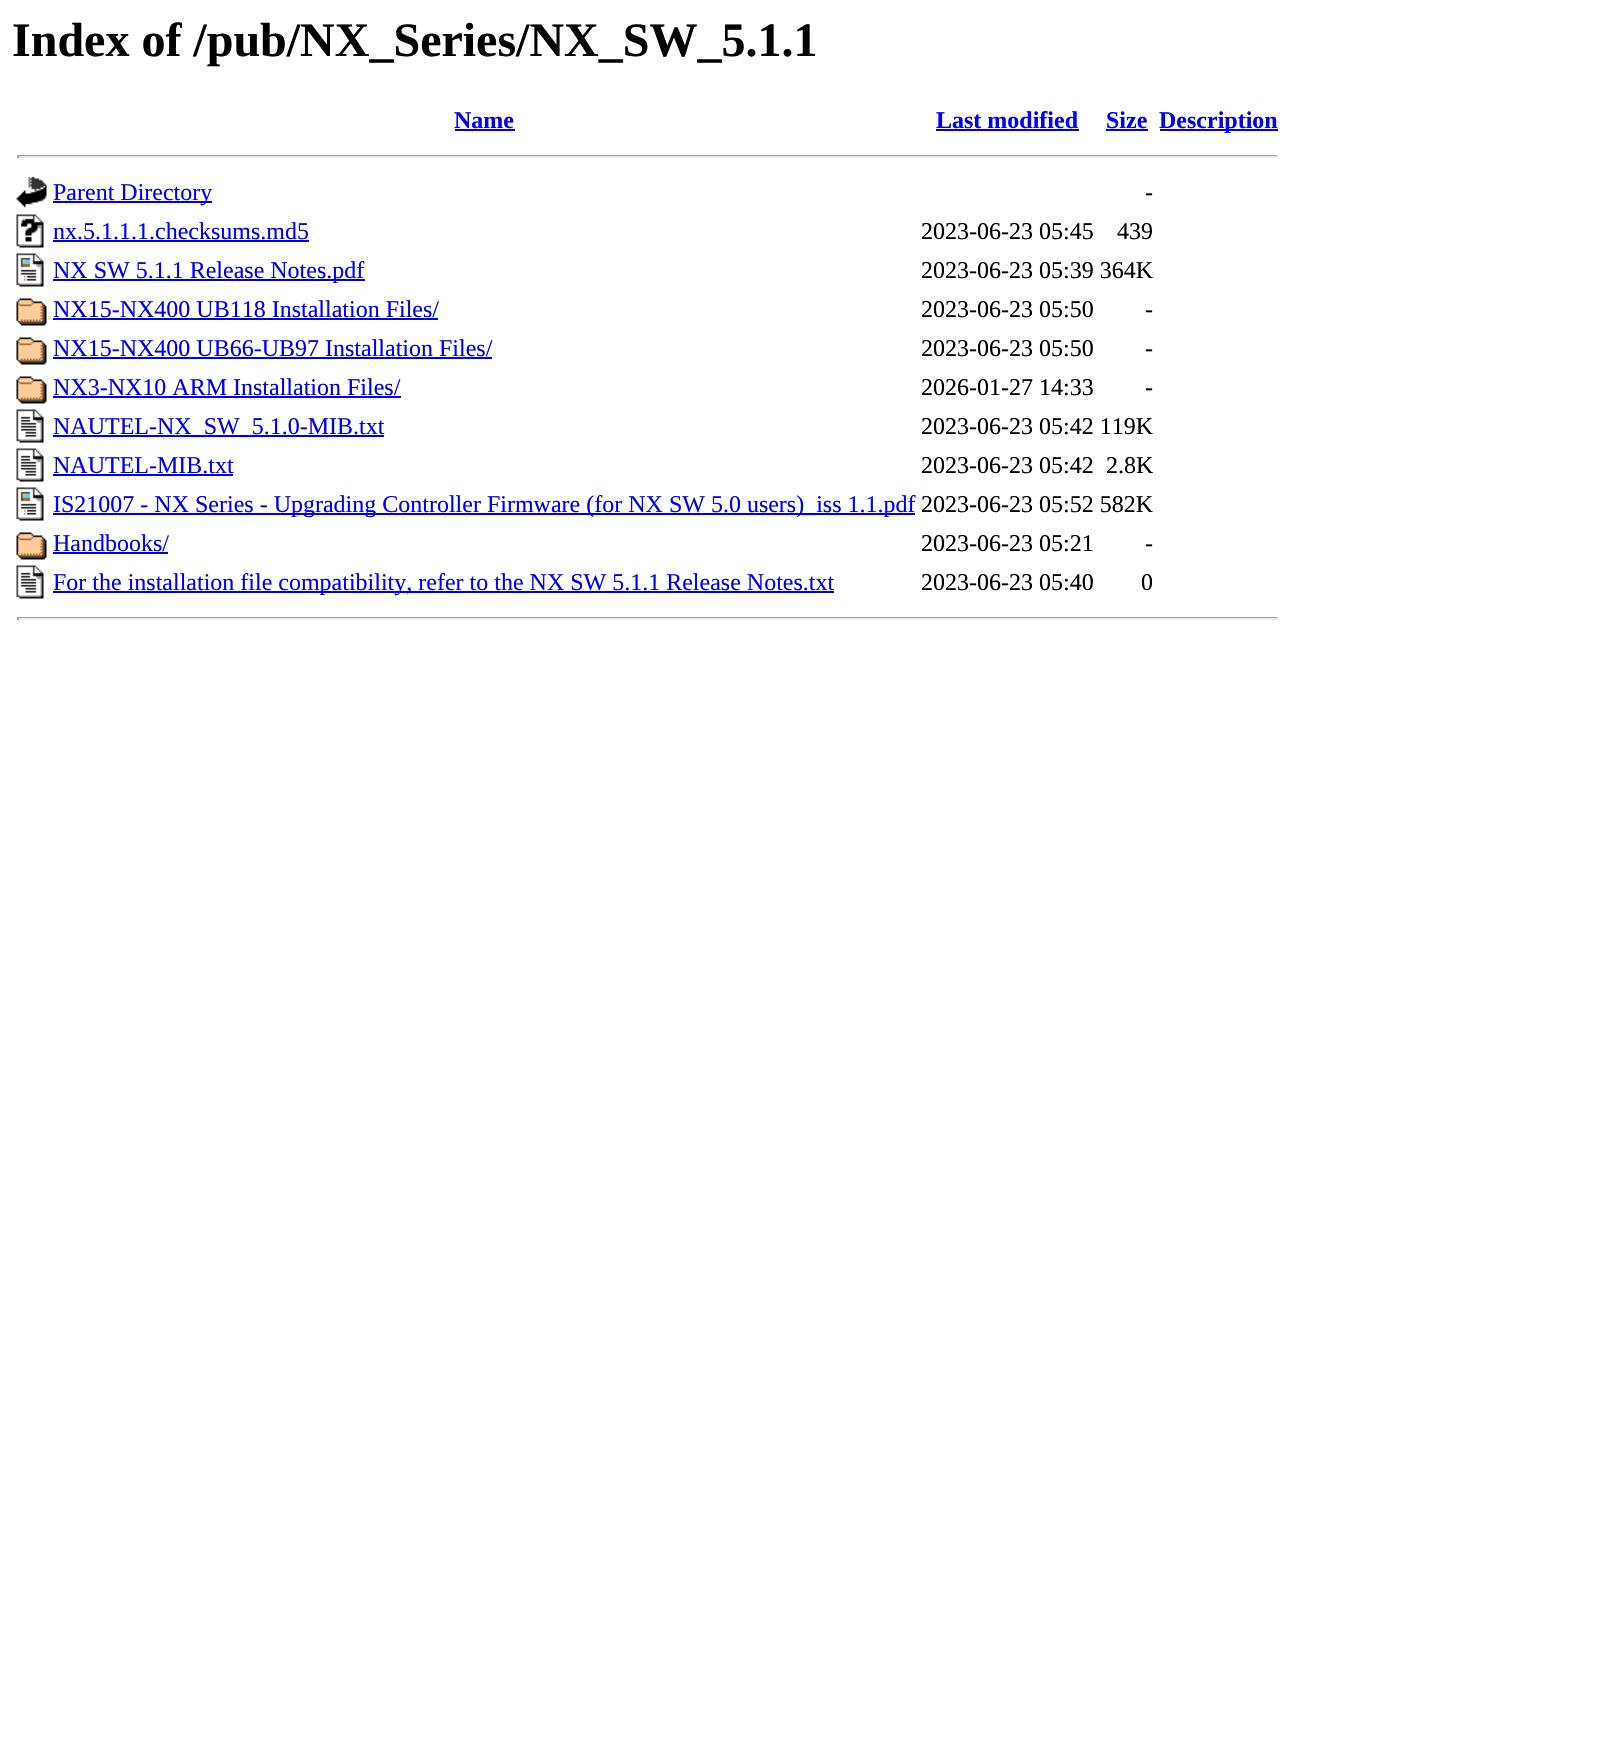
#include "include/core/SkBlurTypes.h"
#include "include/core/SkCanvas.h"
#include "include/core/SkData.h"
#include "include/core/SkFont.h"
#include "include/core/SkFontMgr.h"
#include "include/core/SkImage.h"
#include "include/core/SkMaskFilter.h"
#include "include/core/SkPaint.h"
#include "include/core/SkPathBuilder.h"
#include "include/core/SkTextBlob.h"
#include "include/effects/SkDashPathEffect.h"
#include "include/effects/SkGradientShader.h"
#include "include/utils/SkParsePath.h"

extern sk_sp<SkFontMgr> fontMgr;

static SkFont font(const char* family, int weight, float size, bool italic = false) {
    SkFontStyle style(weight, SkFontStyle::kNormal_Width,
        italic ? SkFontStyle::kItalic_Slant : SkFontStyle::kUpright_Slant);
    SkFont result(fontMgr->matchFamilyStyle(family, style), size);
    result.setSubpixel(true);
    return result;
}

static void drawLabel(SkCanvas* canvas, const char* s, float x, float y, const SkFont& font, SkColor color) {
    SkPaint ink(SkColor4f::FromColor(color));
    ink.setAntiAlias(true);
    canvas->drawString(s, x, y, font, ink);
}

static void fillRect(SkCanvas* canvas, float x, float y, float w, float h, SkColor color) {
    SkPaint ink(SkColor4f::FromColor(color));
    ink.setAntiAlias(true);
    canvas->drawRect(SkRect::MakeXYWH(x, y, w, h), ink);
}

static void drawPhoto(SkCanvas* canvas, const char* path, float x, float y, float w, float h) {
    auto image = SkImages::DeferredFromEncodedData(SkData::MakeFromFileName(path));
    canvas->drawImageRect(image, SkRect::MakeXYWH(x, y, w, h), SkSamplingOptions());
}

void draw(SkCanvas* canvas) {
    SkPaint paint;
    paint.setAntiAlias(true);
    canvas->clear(0xFFFFFFFF);
    SkFont font1 = font("Liberation Serif", 700, 48);
    drawLabel(canvas, "Index of /pub/NX_Series/NX_SW_5.1.1", 12, 56, font1, 0xFF000000);
    SkFont font2 = font("Liberation Serif", 700, 24);
    drawLabel(canvas, "Name", 454, 128, font2, 0xFF0000EE);
    fillRect(canvas, 455, 129, 60, 2, 0xFF0000EE);
    drawLabel(canvas, "Last modified", 936, 128, font2, 0xFF0000EE);
    fillRect(canvas, 936, 129, 143, 2, 0xFF0000EE);
    drawLabel(canvas, "Size", 1106, 128, font2, 0xFF0000EE);
    fillRect(canvas, 1106, 129, 42, 2, 0xFF0000EE);
    fillRect(canvas, 1160, 129, 118, 2, 0xFF0000EE);
    drawLabel(canvas, "Description", 1159, 128, font2, 0xFF0000EE);
    fillRect(canvas, 17, 155, 1261, 1, 0xFF9F9F9F);
    fillRect(canvas, 1277, 155, 2, 3, 0xFFEEEEEE);
    fillRect(canvas, 17, 156, 1261, 2, 0xFFEEEEEE);
    fillRect(canvas, 17, 155, 2, 3, 0xFF9F9F9F);
    drawPhoto(canvas, "assets/img1.png", 16, 176, 31, 32);
    fillRect(canvas, 53, 201, 159, 2, 0xFF0000EE);
    SkFont font3 = font("Liberation Serif", 400, 24);
    drawLabel(canvas, "Parent Directory", 53, 200, font3, 0xFF0000EE);
    drawLabel(canvas, "-", 1145, 200, font3, 0xFF000000);
    drawPhoto(canvas, "assets/img2.png", 16, 214, 28, 34);
    drawLabel(canvas, "nx.5.1.1.1.checksums.md5", 53, 239, font3, 0xFF0000EE);
    fillRect(canvas, 53, 240, 256, 2, 0xFF0000EE);
    drawLabel(canvas, "2023-06-23 05:45", 921, 239, font3, 0xFF000000);
    drawLabel(canvas, "439", 1117, 239, font3, 0xFF000000);
    drawPhoto(canvas, "assets/img3.png", 16, 253, 28, 34);
    fillRect(canvas, 53, 279, 312, 2, 0xFF0000EE);
    drawLabel(canvas, "NX SW 5.1.1 Release Notes.pdf", 53, 278, font3, 0xFF0000EE);
    drawLabel(canvas, "2023-06-23 05:39 364K", 921, 278, font3, 0xFF000000);
    drawPhoto(canvas, "assets/img4.png", 16, 298, 31, 28);
    drawLabel(canvas, "NX15-NX400 UB118 Installation Files/", 53, 317, font3, 0xFF0000EE);
    fillRect(canvas, 53, 318, 385, 2, 0xFF0000EE);
    drawLabel(canvas, "2023-06-23 05:50", 921, 317, font3, 0xFF000000);
    drawLabel(canvas, "-", 1145, 317, font3, 0xFF000000);
    drawPhoto(canvas, "assets/img4.png", 16, 337, 31, 28);
    drawLabel(canvas, "NX15-NX400 UB66-UB97 Installation Files/", 53, 356, font3, 0xFF0000EE);
    fillRect(canvas, 53, 357, 439, 2, 0xFF0000EE);
    drawLabel(canvas, "2023-06-23 05:50", 921, 356, font3, 0xFF000000);
    drawLabel(canvas, "-", 1145, 356, font3, 0xFF000000);
    drawPhoto(canvas, "assets/img4.png", 16, 376, 31, 28);
    drawLabel(canvas, "NX3-NX10 ARM Installation Files/", 53, 395, font3, 0xFF0000EE);
    fillRect(canvas, 53, 396, 348, 2, 0xFF0000EE);
    drawLabel(canvas, "2026-01-27 14:33", 921, 395, font3, 0xFF000000);
    drawLabel(canvas, "-", 1145, 395, font3, 0xFF000000);
    drawPhoto(canvas, "assets/img5.png", 16, 409, 28, 34);
    fillRect(canvas, 53, 435, 331, 2, 0xFF0000EE);
    drawLabel(canvas, "NAUTEL-NX_SW_5.1.0-MIB.txt", 53, 434, font3, 0xFF0000EE);
    drawLabel(canvas, "2023-06-23 05:42 119K", 921, 434, font3, 0xFF000000);
    drawPhoto(canvas, "assets/img5.png", 16, 448, 28, 34);
    drawLabel(canvas, "NAUTEL-MIB.txt", 53, 473, font3, 0xFF0000EE);
    fillRect(canvas, 53, 474, 180, 2, 0xFF0000EE);
    drawLabel(canvas, "2023-06-23 05:42", 921, 473, font3, 0xFF000000);
    drawLabel(canvas, "2.8K", 1106, 473, font3, 0xFF000000);
    drawPhoto(canvas, "assets/img3.png", 16, 487, 28, 34);
    fillRect(canvas, 53, 513, 862, 2, 0xFF0000EE);
    drawLabel(canvas, "IS21007 - NX Series - Upgrading Controller Firmware (for NX SW 5.0 users)_iss 1.1.pdf", 53, 512, font3, 0xFF0000EE);
    drawLabel(canvas, "2023-06-23 05:52 582K", 921, 512, font3, 0xFF000000);
    drawPhoto(canvas, "assets/img4.png", 16, 532, 31, 28);
    drawLabel(canvas, "Handbooks/", 53, 551, font3, 0xFF0000EE);
    fillRect(canvas, 53, 552, 115, 2, 0xFF0000EE);
    drawLabel(canvas, "2023-06-23 05:21", 921, 551, font3, 0xFF000000);
    drawLabel(canvas, "-", 1145, 551, font3, 0xFF000000);
    drawPhoto(canvas, "assets/img5.png", 16, 565, 28, 34);
    fillRect(canvas, 53, 591, 781, 2, 0xFF0000EE);
    drawLabel(canvas, "For the installation file compatibility, refer to the NX SW 5.1.1 Release Notes.txt", 53, 590, font3, 0xFF0000EE);
    drawLabel(canvas, "2023-06-23 05:40", 921, 590, font3, 0xFF000000);
    drawLabel(canvas, "0", 1141, 590, font3, 0xFF000000);
    fillRect(canvas, 17, 617, 1261, 1, 0xFF9F9F9F);
    fillRect(canvas, 1277, 617, 2, 3, 0xFFEEEEEE);
    fillRect(canvas, 17, 618, 1261, 2, 0xFFEEEEEE);
    fillRect(canvas, 17, 617, 2, 3, 0xFF9F9F9F);
}
